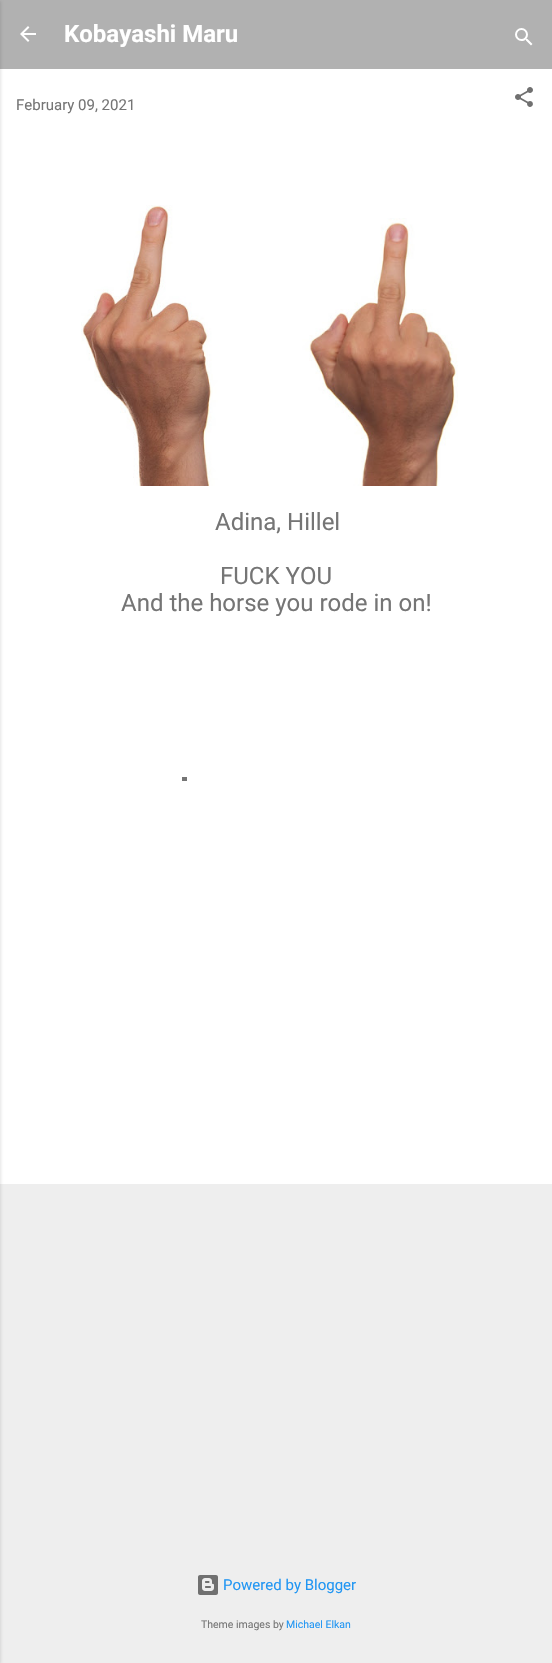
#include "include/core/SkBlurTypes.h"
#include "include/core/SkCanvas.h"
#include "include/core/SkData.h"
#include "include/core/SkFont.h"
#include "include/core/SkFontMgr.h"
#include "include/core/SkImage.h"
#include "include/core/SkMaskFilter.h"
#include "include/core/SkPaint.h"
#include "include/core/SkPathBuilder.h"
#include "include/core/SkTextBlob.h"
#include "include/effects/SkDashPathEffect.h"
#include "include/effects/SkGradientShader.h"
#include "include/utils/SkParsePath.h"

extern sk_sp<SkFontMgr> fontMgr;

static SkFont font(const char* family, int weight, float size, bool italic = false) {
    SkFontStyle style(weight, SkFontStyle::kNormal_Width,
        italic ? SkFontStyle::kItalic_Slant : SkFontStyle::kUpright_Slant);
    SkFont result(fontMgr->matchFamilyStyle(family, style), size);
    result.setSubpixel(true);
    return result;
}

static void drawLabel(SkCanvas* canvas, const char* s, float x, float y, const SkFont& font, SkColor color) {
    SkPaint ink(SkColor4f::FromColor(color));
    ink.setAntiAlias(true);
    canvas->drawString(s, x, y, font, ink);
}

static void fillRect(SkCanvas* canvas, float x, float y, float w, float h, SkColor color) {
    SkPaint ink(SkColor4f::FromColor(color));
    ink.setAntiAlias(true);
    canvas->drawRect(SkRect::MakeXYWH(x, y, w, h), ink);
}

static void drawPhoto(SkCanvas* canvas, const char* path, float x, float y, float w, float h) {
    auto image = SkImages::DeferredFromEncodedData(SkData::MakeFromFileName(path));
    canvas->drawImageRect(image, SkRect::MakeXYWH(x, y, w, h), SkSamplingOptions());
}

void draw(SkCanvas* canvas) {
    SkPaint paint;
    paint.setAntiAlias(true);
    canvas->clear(0xFFEEEEEE);
    fillRect(canvas, 0, 0, 552, 69, 0xFFB1B1B1);
    fillRect(canvas, 0, 69, 552, 1115, 0xFFFFFFFF);
    paint.setColor(0x1A000000);
    paint.setMaskFilter(SkMaskFilter::MakeBlur(kNormal_SkBlurStyle, 1.5f));
    canvas->drawRect(SkRect::MakeXYWH(-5, 1, 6, 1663), paint);
    paint.setMaskFilter(nullptr);
    drawPhoto(canvas, "assets/img1.png", 20, 26, 16, 16);
    SkFont font1 = font("Roboto", 700, 24);
    drawLabel(canvas, "Kobayashi Maru", 64, 42, font1, 0xFFFFFFFF);
    drawPhoto(canvas, "assets/img2.png", 515, 28, 18, 18);
    SkFont font2 = font("Roboto", 400, 15);
    drawLabel(canvas, "February 09, 2021", 16, 110, font2, 0xFF757575);
    drawPhoto(canvas, "assets/img3.png", 515, 87, 18, 20);
    drawPhoto(canvas, "assets/img4.png", 81, 205, 377, 281);
    SkFont font3 = font("Roboto", 400, 24);
    drawLabel(canvas, "Adina, Hillel", 215, 530, font3, 0xFF757575);
    drawLabel(canvas, "FUCK YOU", 220, 584, font3, 0xFF757575);
    drawLabel(canvas, "And the horse you rode in on!", 121, 611, font3, 0xFF757575);
    drawPhoto(canvas, "assets/img5.png", 198, 1575, 20, 20);
    drawLabel(canvas, "Powered by Blogger", 223, 1590, font2, 0xFF2196F3);
    SkFont font4 = font("Roboto", 400, 10.5f);
    drawLabel(canvas, "Theme images by", 201, 1628, font4, 0xFF757575);
    drawLabel(canvas, "Michael Elkan", 286, 1628, font4, 0xFF2196F3);
    fillRect(canvas, 182, 777, 5, 4, 0xFF757575);
}
